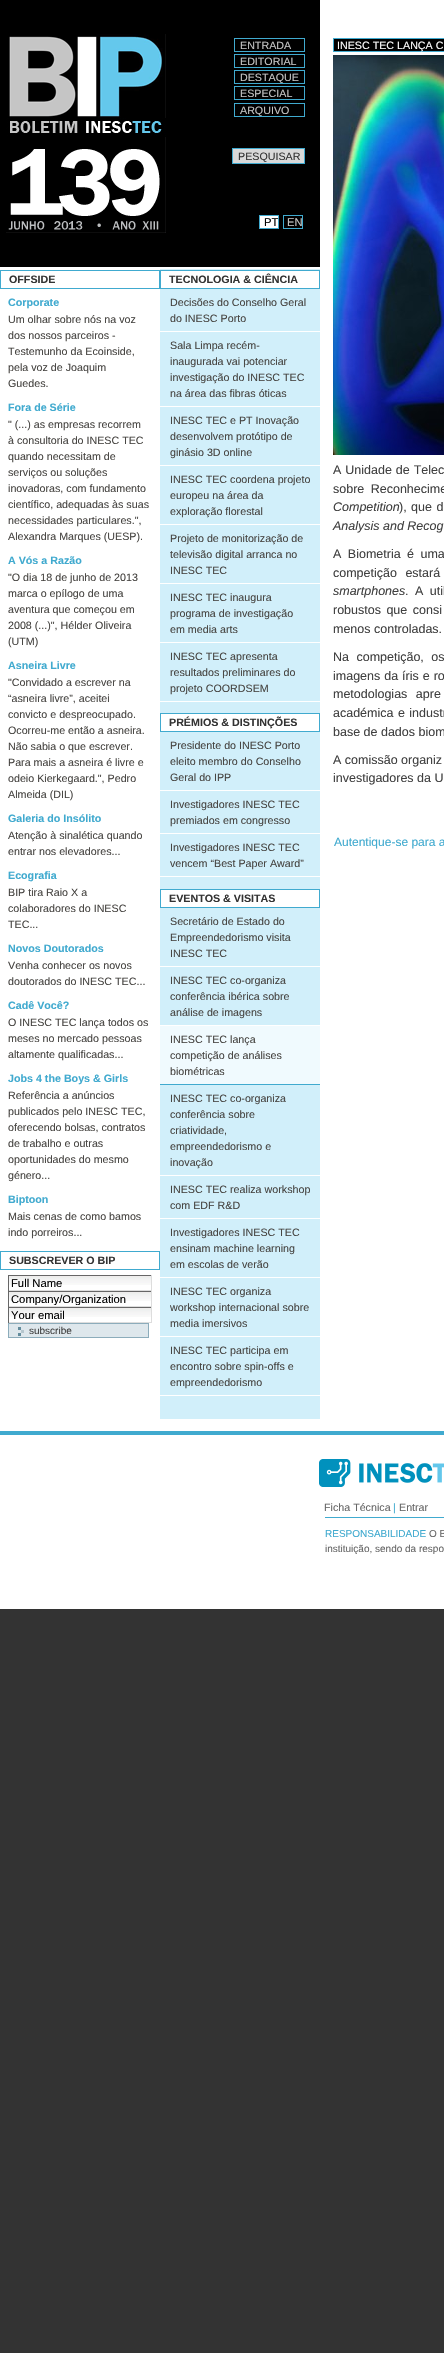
#include "include/core/SkBlurTypes.h"
#include "include/core/SkCanvas.h"
#include "include/core/SkData.h"
#include "include/core/SkFont.h"
#include "include/core/SkFontMgr.h"
#include "include/core/SkImage.h"
#include "include/core/SkMaskFilter.h"
#include "include/core/SkPaint.h"
#include "include/core/SkPathBuilder.h"
#include "include/core/SkTextBlob.h"
#include "include/effects/SkDashPathEffect.h"
#include "include/effects/SkGradientShader.h"
#include "include/utils/SkParsePath.h"

extern sk_sp<SkFontMgr> fontMgr;

static SkFont font(const char* family, int weight, float size, bool italic = false) {
    SkFontStyle style(weight, SkFontStyle::kNormal_Width,
        italic ? SkFontStyle::kItalic_Slant : SkFontStyle::kUpright_Slant);
    SkFont result(fontMgr->matchFamilyStyle(family, style), size);
    result.setSubpixel(true);
    return result;
}

static void drawLabel(SkCanvas* canvas, const char* s, float x, float y, const SkFont& font, SkColor color) {
    SkPaint ink(SkColor4f::FromColor(color));
    ink.setAntiAlias(true);
    canvas->drawString(s, x, y, font, ink);
}

static void drawTracked(SkCanvas* canvas, const char* s, float x, float y, const SkFont& font, const SkPaint& ink, float letter, float word) {
    std::vector<SkGlyphID> glyphs(font.countText(s, strlen(s), SkTextEncoding::kUTF8));
    std::vector<float> xs(glyphs.size());
    font.textToGlyphs(s, strlen(s), SkTextEncoding::kUTF8, glyphs);
    font.getXPos(glyphs, xs, x);
    float extra = 0;
    for (size_t i = 0; i < glyphs.size(); i++) {
        xs[i] += extra;
        extra += letter + word * (glyphs[i] == font.unicharToGlyph(' '));
    }
    canvas->drawTextBlob(SkTextBlob::MakeFromPosHGlyphs(glyphs, xs, y, font), 0, 0, ink);
}

static void fillRect(SkCanvas* canvas, float x, float y, float w, float h, SkColor color) {
    SkPaint ink(SkColor4f::FromColor(color));
    ink.setAntiAlias(true);
    canvas->drawRect(SkRect::MakeXYWH(x, y, w, h), ink);
}

static void drawPhoto(SkCanvas* canvas, const char* path, float x, float y, float w, float h) {
    auto image = SkImages::DeferredFromEncodedData(SkData::MakeFromFileName(path));
    canvas->drawImageRect(image, SkRect::MakeXYWH(x, y, w, h), SkSamplingOptions());
}

void draw(SkCanvas* canvas) {
    SkPaint paint;
    paint.setAntiAlias(true);
    canvas->clear(0xFF333333);
    fillRect(canvas, 0, 0, 444, 1609, 0xFFFFFFFF);
    fillRect(canvas, 0, 0, 320, 267, 0xFF000000);
    drawPhoto(canvas, "assets/img1.png", 6, 34, 160, 199);
    paint.setStroke(true);
    paint.setStrokeWidth(1);
    paint.setColor(0xFF40AACF);
    canvas->drawRect(SkRect::MakeXYWH(234.5f, 38.5f, 70, 13), paint);
    SkFont font1 = font("Liberation Sans", 400, 10.7f);
    drawLabel(canvas, "ENTRADA", 240, 49, font1, 0xFFC5C5C5);
    canvas->drawRect(SkRect::MakeXYWH(234.5f, 54.5f, 70, 13), paint);
    drawLabel(canvas, "EDITORIAL", 240, 65, font1, 0xFFC5C5C5);
    canvas->drawRect(SkRect::MakeXYWH(234.5f, 70.5f, 70, 13), paint);
    drawLabel(canvas, "DESTAQUE", 240, 81, font1, 0xFFC5C5C5);
    canvas->drawRect(SkRect::MakeXYWH(234.5f, 86.5f, 70, 13), paint);
    drawLabel(canvas, "ESPECIAL", 240, 97, font1, 0xFFC5C5C5);
    canvas->drawRect(SkRect::MakeXYWH(234.5f, 103.5f, 70, 13), paint);
    drawLabel(canvas, "ARQUIVO", 240, 114, font1, 0xFFC5C5C5);
    paint.setStroke(false);
    paint.setColor(0xFFD9D9D9);
    canvas->drawRect(SkRect::MakeXYWH(232.5f, 148.5f, 72, 15), paint);
    paint.setStroke(true);
    paint.setColor(0xFF40AACF);
    canvas->drawRect(SkRect::MakeXYWH(232.5f, 148.5f, 72, 15), paint);
    drawLabel(canvas, "PESQUISAR", 238, 160, font1, 0xFF333333);
    paint.setStroke(false);
    paint.setColor(0xFFFFFFFF);
    canvas->drawRect(SkRect::MakeXYWH(259.5f, 215.5f, 19, 13), paint);
    paint.setStroke(true);
    paint.setColor(0xFF40AACF);
    canvas->drawRect(SkRect::MakeXYWH(259.5f, 215.5f, 19, 13), paint);
    SkFont font2 = font("Liberation Sans", 400, 11.25f);
    drawLabel(canvas, "PT", 264, 226, font2, 0xFF000000);
    canvas->drawRect(SkRect::MakeXYWH(283.5f, 215.5f, 19, 13), paint);
    drawLabel(canvas, "EN", 287, 226, font2, 0xFFC5C5C5);
    canvas->drawRect(SkRect::MakeXYWH(0.5f, 270.5f, 159, 18), paint);
    SkFont font3 = font("Liberation Sans", 700, 10.7f);
    drawLabel(canvas, "OFFSIDE", 9, 283, font3, 0xFF333333);
    drawLabel(canvas, "Corporate", 8, 306, font3, 0xFF40AACF);
    drawLabel(canvas, "Um olhar sobre nós na voz", 8, 323, font1, 0xFF464441);
    drawLabel(canvas, "dos nossos parceiros -", 8, 339, font1, 0xFF464441);
    drawLabel(canvas, "Testemunho da Ecoinside,", 8, 355, font1, 0xFF464441);
    drawLabel(canvas, "pela voz de Joaquim", 8, 371, font1, 0xFF464441);
    drawLabel(canvas, "Guedes.", 8, 387, font1, 0xFF464441);
    drawLabel(canvas, "Fora de Série", 8, 411, font3, 0xFF40AACF);
    drawLabel(canvas, "\" (...) as empresas recorrem", 8, 428, font1, 0xFF464441);
    drawLabel(canvas, "à consultoria do INESC TEC", 8, 444, font1, 0xFF464441);
    drawLabel(canvas, "quando necessitam de", 8, 460, font1, 0xFF464441);
    drawLabel(canvas, "serviços ou soluções", 8, 476, font1, 0xFF464441);
    drawLabel(canvas, "inovadoras, com fundamento", 8, 492, font1, 0xFF464441);
    drawLabel(canvas, "científico, adequadas às suas", 8, 508, font1, 0xFF464441);
    drawLabel(canvas, "necessidades particulares.\",", 8, 524, font1, 0xFF464441);
    drawLabel(canvas, "Alexandra Marques (UESP).", 8, 540, font1, 0xFF464441);
    drawLabel(canvas, "A Vós a Razão", 8, 564, font3, 0xFF40AACF);
    drawLabel(canvas, "\"O dia 18 de junho de 2013", 8, 581, font1, 0xFF464441);
    drawLabel(canvas, "marca o epílogo de uma", 8, 597, font1, 0xFF464441);
    drawLabel(canvas, "aventura que começou em", 8, 613, font1, 0xFF464441);
    drawLabel(canvas, "2008 (...)\", Hélder Oliveira", 8, 629, font1, 0xFF464441);
    drawLabel(canvas, "(UTM)", 8, 645, font1, 0xFF464441);
    drawLabel(canvas, "Asneira Livre", 8, 669, font3, 0xFF40AACF);
    drawLabel(canvas, "\"Convidado a escrever na", 8, 686, font1, 0xFF464441);
    drawLabel(canvas, "“asneira livre”, aceitei", 8, 702, font1, 0xFF464441);
    drawLabel(canvas, "convicto e despreocupado.", 8, 718, font1, 0xFF464441);
    drawLabel(canvas, "Ocorreu-me então a asneira.", 8, 734, font1, 0xFF464441);
    drawLabel(canvas, "Não sabia o que escrever.", 8, 750, font1, 0xFF464441);
    drawLabel(canvas, "Para mais a asneira é livre e", 8, 766, font1, 0xFF464441);
    drawLabel(canvas, "odeio Kierkegaard.\", Pedro", 8, 782, font1, 0xFF464441);
    drawLabel(canvas, "Almeida (DIL)", 8, 798, font1, 0xFF464441);
    drawLabel(canvas, "Galeria do Insólito", 8, 822, font3, 0xFF40AACF);
    drawLabel(canvas, "Atenção à sinalética quando", 8, 839, font1, 0xFF464441);
    drawLabel(canvas, "entrar nos elevadores...", 8, 855, font1, 0xFF464441);
    drawLabel(canvas, "Ecografia", 8, 879, font3, 0xFF40AACF);
    drawLabel(canvas, "BIP tira Raio X a", 8, 896, font1, 0xFF464441);
    drawLabel(canvas, "colaboradores do INESC", 8, 912, font1, 0xFF464441);
    drawLabel(canvas, "TEC...", 8, 928, font1, 0xFF464441);
    drawLabel(canvas, "Novos Doutorados", 8, 952, font3, 0xFF40AACF);
    drawLabel(canvas, "Venha conhecer os novos", 8, 969, font1, 0xFF464441);
    drawLabel(canvas, "doutorados do INESC TEC...", 8, 985, font1, 0xFF464441);
    drawLabel(canvas, "Cadê Você?", 8, 1009, font3, 0xFF40AACF);
    drawLabel(canvas, "O INESC TEC lança todos os", 8, 1026, font1, 0xFF464441);
    drawLabel(canvas, "meses no mercado pessoas", 8, 1042, font1, 0xFF464441);
    drawLabel(canvas, "altamente qualificadas...", 8, 1058, font1, 0xFF464441);
    drawLabel(canvas, "Jobs 4 the Boys & Girls", 8, 1082, font3, 0xFF40AACF);
    drawLabel(canvas, "Referência a anúncios", 8, 1099, font1, 0xFF464441);
    drawLabel(canvas, "publicados pelo INESC TEC,", 8, 1115, font1, 0xFF464441);
    drawLabel(canvas, "oferecendo bolsas, contratos", 8, 1131, font1, 0xFF464441);
    drawLabel(canvas, "de trabalho e outras", 8, 1147, font1, 0xFF464441);
    drawLabel(canvas, "oportunidades do mesmo", 8, 1163, font1, 0xFF464441);
    drawLabel(canvas, "género...", 8, 1179, font1, 0xFF464441);
    drawLabel(canvas, "Biptoon", 8, 1203, font3, 0xFF40AACF);
    drawLabel(canvas, "Mais cenas de como bamos", 8, 1220, font1, 0xFF464441);
    drawLabel(canvas, "indo porreiros...", 8, 1236, font1, 0xFF464441);
    canvas->drawRect(SkRect::MakeXYWH(0.5f, 1251.5f, 159, 18), paint);
    drawLabel(canvas, "SUBSCREVER O BIP", 9, 1264, font3, 0xFF333333);
    drawPhoto(canvas, "assets/img2.png", 9, 1276, 142, 9);
    fillRect(canvas, 8, 1275, 144, 1, 0xFF666666);
    fillRect(canvas, 151, 1275, 1, 16, 0xFFDDDDDD);
    fillRect(canvas, 8, 1290, 144, 1, 0xFFDDDDDD);
    fillRect(canvas, 8, 1275, 1, 16, 0xFF666666);
    drawLabel(canvas, "Full Name", 11, 1287, font2, 0xFF000000);
    drawPhoto(canvas, "assets/img2.png", 9, 1292, 142, 9);
    fillRect(canvas, 8, 1291, 144, 1, 0xFF666666);
    fillRect(canvas, 151, 1291, 1, 16, 0xFFDDDDDD);
    fillRect(canvas, 8, 1306, 144, 1, 0xFFDDDDDD);
    fillRect(canvas, 8, 1291, 1, 16, 0xFF666666);
    canvas->save();
    canvas->clipRect(SkRect::MakeXYWH(11, 1293, 138, 12));
    drawLabel(canvas, "Company/Organization", 11, 1303, font2, 0xFF000000);
    canvas->restore();
    drawPhoto(canvas, "assets/img2.png", 9, 1308, 142, 9);
    fillRect(canvas, 8, 1307, 144, 1, 0xFF666666);
    fillRect(canvas, 151, 1307, 1, 16, 0xFFDDDDDD);
    fillRect(canvas, 8, 1322, 144, 1, 0xFFDDDDDD);
    fillRect(canvas, 8, 1307, 1, 16, 0xFF666666);
    drawLabel(canvas, "Your email", 11, 1319, font2, 0xFF000000);
    fillRect(canvas, 9, 1324, 139, 13, 0xFFDEE7EC);
    drawPhoto(canvas, "assets/img3.png", 18, 1327, 6, 9);
    paint.setColor(0xFF8CACBB);
    canvas->drawRect(SkRect::MakeXYWH(8.5f, 1323.5f, 140, 14), paint);
    SkFont font4 = font("Liberation Sans", 400, 10);
    drawLabel(canvas, "subscribe", 29, 1334, font4, 0xFF404040);
    fillRect(canvas, 160, 269, 160, 1150, 0xFFD1EFFA);
    paint.setStroke(false);
    paint.setColor(0xFFFFFFFF);
    canvas->drawRect(SkRect::MakeXYWH(160.5f, 270.5f, 159, 18), paint);
    paint.setStroke(true);
    paint.setColor(0xFF40AACF);
    canvas->drawRect(SkRect::MakeXYWH(160.5f, 270.5f, 159, 18), paint);
    drawLabel(canvas, "TECNOLOGIA & CIÊNCIA", 169, 283, font3, 0xFF333333);
    fillRect(canvas, 160, 331, 160, 1, 0xFFFFFFFF);
    drawLabel(canvas, "Decisões do Conselho Geral", 170, 306, font1, 0xFF464441);
    drawLabel(canvas, "do INESC Porto", 170, 322, font1, 0xFF464441);
    fillRect(canvas, 160, 406, 160, 1, 0xFFFFFFFF);
    drawLabel(canvas, "Sala Limpa recém-", 170, 349, font1, 0xFF464441);
    drawLabel(canvas, "inaugurada vai potenciar", 170, 365, font1, 0xFF464441);
    drawLabel(canvas, "investigação do INESC TEC", 170, 381, font1, 0xFF464441);
    drawLabel(canvas, "na área das fibras óticas", 170, 397, font1, 0xFF464441);
    fillRect(canvas, 160, 465, 160, 1, 0xFFFFFFFF);
    drawLabel(canvas, "INESC TEC e PT Inovação", 170, 424, font1, 0xFF464441);
    drawLabel(canvas, "desenvolvem protótipo de", 170, 440, font1, 0xFF464441);
    drawLabel(canvas, "ginásio 3D online", 170, 456, font1, 0xFF464441);
    fillRect(canvas, 160, 524, 160, 1, 0xFFFFFFFF);
    drawLabel(canvas, "INESC TEC coordena projeto", 170, 483, font1, 0xFF464441);
    drawLabel(canvas, "europeu na área da", 170, 499, font1, 0xFF464441);
    drawLabel(canvas, "exploração florestal", 170, 515, font1, 0xFF464441);
    fillRect(canvas, 160, 583, 160, 1, 0xFFFFFFFF);
    drawLabel(canvas, "Projeto de monitorização de", 170, 542, font1, 0xFF464441);
    drawLabel(canvas, "televisão digital arranca no", 170, 558, font1, 0xFF464441);
    drawLabel(canvas, "INESC TEC", 170, 574, font1, 0xFF464441);
    fillRect(canvas, 160, 642, 160, 1, 0xFFFFFFFF);
    drawLabel(canvas, "INESC TEC inaugura", 170, 601, font1, 0xFF464441);
    drawLabel(canvas, "programa de investigação", 170, 617, font1, 0xFF464441);
    drawLabel(canvas, "em media arts", 170, 633, font1, 0xFF464441);
    fillRect(canvas, 160, 701, 160, 1, 0xFFFFFFFF);
    drawLabel(canvas, "INESC TEC apresenta", 170, 660, font1, 0xFF464441);
    drawLabel(canvas, "resultados preliminares do", 170, 676, font1, 0xFF464441);
    drawLabel(canvas, "projeto COORDSEM", 170, 692, font1, 0xFF464441);
    paint.setStroke(false);
    paint.setColor(0xFFFFFFFF);
    canvas->drawRect(SkRect::MakeXYWH(160.5f, 713.5f, 159, 18), paint);
    paint.setStroke(true);
    paint.setColor(0xFF40AACF);
    canvas->drawRect(SkRect::MakeXYWH(160.5f, 713.5f, 159, 18), paint);
    drawLabel(canvas, "PRÉMIOS & DISTINÇÕES", 169, 726, font3, 0xFF333333);
    fillRect(canvas, 160, 790, 160, 1, 0xFFFFFFFF);
    drawLabel(canvas, "Presidente do INESC Porto", 170, 749, font1, 0xFF464441);
    drawLabel(canvas, "eleito membro do Conselho", 170, 765, font1, 0xFF464441);
    drawLabel(canvas, "Geral do IPP", 170, 781, font1, 0xFF464441);
    fillRect(canvas, 160, 833, 160, 1, 0xFFFFFFFF);
    drawLabel(canvas, "Investigadores INESC TEC", 170, 808, font1, 0xFF464441);
    drawLabel(canvas, "premiados em congresso", 170, 824, font1, 0xFF464441);
    fillRect(canvas, 160, 876, 160, 1, 0xFFFFFFFF);
    drawLabel(canvas, "Investigadores INESC TEC", 170, 851, font1, 0xFF464441);
    drawLabel(canvas, "vencem “Best Paper Award”", 170, 867, font1, 0xFF464441);
    paint.setStroke(false);
    paint.setColor(0xFFFFFFFF);
    canvas->drawRect(SkRect::MakeXYWH(160.5f, 889.5f, 159, 18), paint);
    paint.setStroke(true);
    paint.setColor(0xFF40AACF);
    canvas->drawRect(SkRect::MakeXYWH(160.5f, 889.5f, 159, 18), paint);
    drawLabel(canvas, "EVENTOS & VISITAS", 169, 902, font3, 0xFF333333);
    fillRect(canvas, 160, 966, 160, 1, 0xFFFFFFFF);
    drawLabel(canvas, "Secretário de Estado do", 170, 925, font1, 0xFF464441);
    drawLabel(canvas, "Empreendedorismo visita", 170, 941, font1, 0xFF464441);
    drawLabel(canvas, "INESC TEC", 170, 957, font1, 0xFF464441);
    fillRect(canvas, 160, 1025, 160, 1, 0xFFFFFFFF);
    drawLabel(canvas, "INESC TEC co-organiza", 170, 984, font1, 0xFF464441);
    drawLabel(canvas, "conferência ibérica sobre", 170, 1000, font1, 0xFF464441);
    drawLabel(canvas, "análise de imagens", 170, 1016, font1, 0xFF464441);
    fillRect(canvas, 160, 1026, 160, 58, 0xFFF0FAFE);
    fillRect(canvas, 160, 1084, 160, 1, 0xFF40AACF);
    drawLabel(canvas, "INESC TEC lança", 170, 1043, font1, 0xFF464441);
    drawLabel(canvas, "competição de análises", 170, 1059, font1, 0xFF464441);
    drawLabel(canvas, "biométricas", 170, 1075, font1, 0xFF464441);
    fillRect(canvas, 160, 1175, 160, 1, 0xFFFFFFFF);
    drawLabel(canvas, "INESC TEC co-organiza", 170, 1102, font1, 0xFF464441);
    drawLabel(canvas, "conferência sobre", 170, 1118, font1, 0xFF464441);
    drawLabel(canvas, "criatividade,", 170, 1134, font1, 0xFF464441);
    drawLabel(canvas, "empreendedorismo e", 170, 1150, font1, 0xFF464441);
    drawLabel(canvas, "inovação", 170, 1166, font1, 0xFF464441);
    fillRect(canvas, 160, 1218, 160, 1, 0xFFFFFFFF);
    drawLabel(canvas, "INESC TEC realiza workshop", 170, 1193, font1, 0xFF464441);
    drawLabel(canvas, "com EDF R&D", 170, 1209, font1, 0xFF464441);
    fillRect(canvas, 160, 1277, 160, 1, 0xFFFFFFFF);
    drawLabel(canvas, "Investigadores INESC TEC", 170, 1236, font1, 0xFF464441);
    drawLabel(canvas, "ensinam machine learning", 170, 1252, font1, 0xFF464441);
    drawLabel(canvas, "em escolas de verão", 170, 1268, font1, 0xFF464441);
    fillRect(canvas, 160, 1336, 160, 1, 0xFFFFFFFF);
    drawLabel(canvas, "INESC TEC organiza", 170, 1295, font1, 0xFF464441);
    drawLabel(canvas, "workshop internacional sobre", 170, 1311, font1, 0xFF464441);
    drawLabel(canvas, "media imersivos", 170, 1327, font1, 0xFF464441);
    fillRect(canvas, 160, 1395, 160, 1, 0xFFFFFFFF);
    drawLabel(canvas, "INESC TEC participa em", 170, 1354, font1, 0xFF464441);
    drawLabel(canvas, "encontro sobre spin-offs e", 170, 1370, font1, 0xFF464441);
    drawLabel(canvas, "empreendedorismo", 170, 1386, font1, 0xFF464441);
    paint.setStroke(false);
    paint.setColor(0xFF000000);
    canvas->drawRect(SkRect::MakeXYWH(333.5f, 38.5f, 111, 13), paint);
    paint.setStroke(true);
    paint.setColor(0xFF40AACF);
    canvas->drawRect(SkRect::MakeXYWH(333.5f, 38.5f, 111, 13), paint);
    drawLabel(canvas, "INESC TEC LANÇA C", 337, 49, font1, 0xFFFFFFFF);
    drawPhoto(canvas, "assets/img4.png", 333, 55, 111, 400);
    SkFont font5 = font("Liberation Sans", 400, 12.5f);
    paint.setStroke(false);
    paint.setColor(0xFF404040);
    drawTracked(canvas, "A Unidade de Telec", 333, 474, font5, paint, 0, 0.5f);
    drawTracked(canvas, "sobre Reconhecime", 333, 493, font5, paint, 0, 3);
    SkFont font6 = font("Liberation Sans", 400, 12.5f, true);
    drawLabel(canvas, "Competition", 333, 511, font6, 0xFF404040);
    drawTracked(canvas, "), que d", 399, 511, font5, paint, 0, 1);
    drawLabel(canvas, "Analysis and Recog", 333, 530, font6, 0xFF404040);
    drawTracked(canvas, "A Biometria é uma", 333, 558, font5, paint, 0, 3);
    drawTracked(canvas, "competição estará", 333, 577, font5, paint, 0, 5);
    drawLabel(canvas, "smartphones", 333, 595, font6, 0xFF404040);
    drawTracked(canvas, ". A util", 405, 595, font5, paint, 0, 3);
    drawTracked(canvas, "robustos que consi", 333, 614, font5, paint, 0, 2);
    drawLabel(canvas, "menos controladas.", 333, 633, font5, 0xFF404040);
    drawTracked(canvas, "Na competição, os", 333, 661, font5, paint, 0, 4);
    drawTracked(canvas, "imagens da íris e ro", 333, 680, font5, paint, 0, 0.5f);
    drawTracked(canvas, "metodologias apre", 333, 698, font5, paint, 0, 5);
    drawTracked(canvas, "académica e industr", 333, 717, font5, paint, 0, 1);
    drawLabel(canvas, "base de dados biom", 333, 736, font5, 0xFF404040);
    drawLabel(canvas, "A comissão organiz", 333, 764, font5, 0xFF404040);
    drawLabel(canvas, "investigadores da U", 333, 782, font5, 0xFF404040);
    SkFont font7 = font("Liberation Sans", 400, 12);
    drawLabel(canvas, "Autentique-se para a", 334, 846, font7, 0xFF40AACF);
    fillRect(canvas, 0, 1431, 444, 4, 0xFF40AACF);
    drawPhoto(canvas, "assets/img5.png", 319, 1459, 125, 28);
    drawLabel(canvas, "Ficha Técnica", 324, 1511, font1, 0xFF666666);
    drawLabel(canvas, "|", 393, 1511, font1, 0xFF40AACF);
    drawLabel(canvas, "Entrar", 399, 1511, font1, 0xFF666666);
    fillRect(canvas, 325, 1517, 119, 1, 0xFF40AACF);
    drawLabel(canvas, "RESPONSABILIDADE", 325, 1537, font4, 0xFF40AACF);
    drawLabel(canvas, "O B", 429, 1537, font4, 0xFF666666);
    drawLabel(canvas, "instituição, sendo da respo", 325, 1552, font4, 0xFF666666);
}
